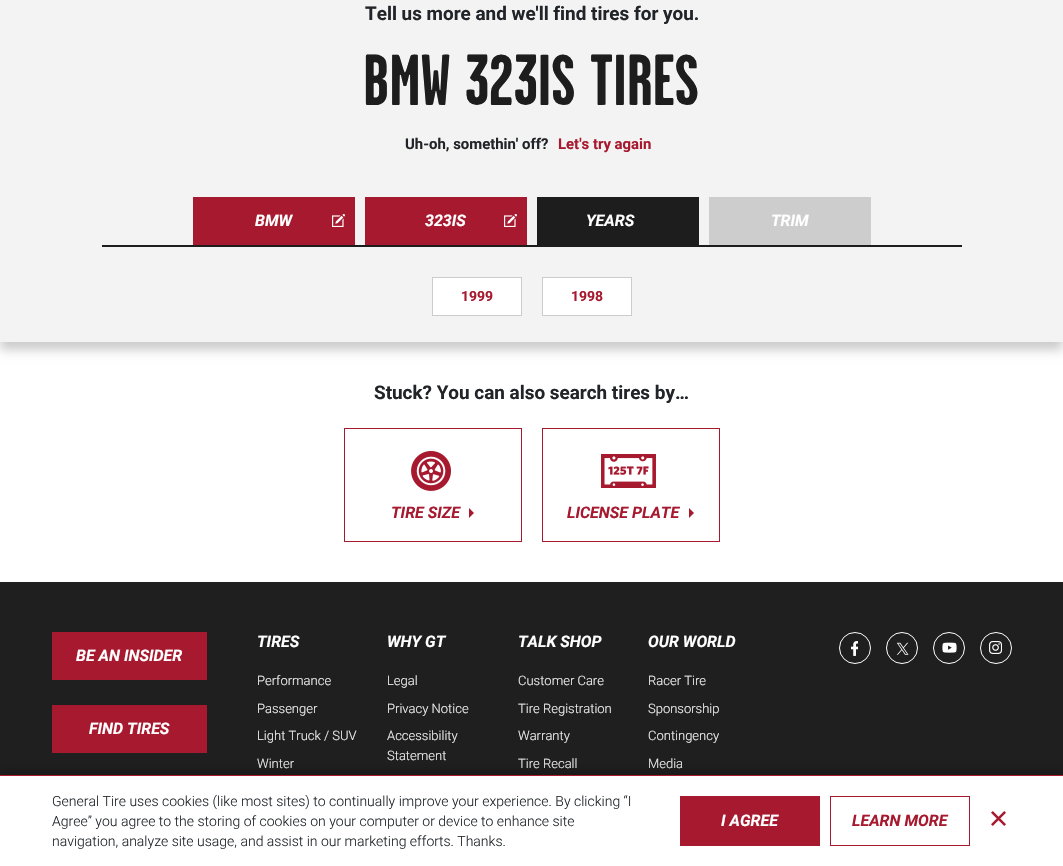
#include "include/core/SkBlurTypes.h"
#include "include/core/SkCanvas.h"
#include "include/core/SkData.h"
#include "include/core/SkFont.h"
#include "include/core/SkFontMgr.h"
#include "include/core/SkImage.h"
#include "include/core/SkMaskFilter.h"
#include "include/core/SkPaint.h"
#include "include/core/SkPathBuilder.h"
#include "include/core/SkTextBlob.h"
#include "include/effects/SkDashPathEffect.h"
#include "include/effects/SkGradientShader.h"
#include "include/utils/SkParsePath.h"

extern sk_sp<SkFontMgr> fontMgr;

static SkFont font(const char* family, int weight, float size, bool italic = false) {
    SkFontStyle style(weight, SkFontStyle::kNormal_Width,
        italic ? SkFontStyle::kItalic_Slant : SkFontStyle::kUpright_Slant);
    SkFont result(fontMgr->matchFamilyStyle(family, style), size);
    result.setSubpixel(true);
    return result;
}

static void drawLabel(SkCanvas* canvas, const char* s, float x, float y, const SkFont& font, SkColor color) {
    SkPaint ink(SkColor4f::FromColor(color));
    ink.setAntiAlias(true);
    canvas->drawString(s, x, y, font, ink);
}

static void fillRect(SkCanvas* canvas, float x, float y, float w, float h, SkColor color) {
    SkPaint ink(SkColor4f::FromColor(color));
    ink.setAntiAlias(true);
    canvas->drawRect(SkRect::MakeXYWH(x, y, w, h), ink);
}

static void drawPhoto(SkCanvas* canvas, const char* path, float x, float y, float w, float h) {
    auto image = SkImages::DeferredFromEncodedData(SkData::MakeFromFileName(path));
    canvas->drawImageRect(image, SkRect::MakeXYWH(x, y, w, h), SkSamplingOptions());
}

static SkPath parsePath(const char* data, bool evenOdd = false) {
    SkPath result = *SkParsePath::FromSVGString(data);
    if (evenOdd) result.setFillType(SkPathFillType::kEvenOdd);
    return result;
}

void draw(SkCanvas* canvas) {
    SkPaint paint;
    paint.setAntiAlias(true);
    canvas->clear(0xFFFFFFFF);
    paint.setColor(0x33000000);
    paint.setMaskFilter(SkMaskFilter::MakeBlur(kNormal_SkBlurStyle, 5));
    canvas->drawRect(SkRect::MakeXYWH(0, -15, 1063, 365), paint);
    paint.setMaskFilter(nullptr);
    fillRect(canvas, 0, 0, 1063, 342, 0xFFF3F3F3);
    SkFont font1 = font("Roboto", 700, 18.9f);
    drawLabel(canvas, "Tell us more and we'll find tires for you.", 365, 20, font1, 0xFF212529);
    SkFont font2 = font("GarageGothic", 700, 72);
    drawLabel(canvas, "BMW 323IS TIRES", 363, 105, font2, 0xFF1D1D1D);
    SkFont font3 = font("Roboto", 700, 14.9f);
    drawLabel(canvas, "Uh-oh, somethin' off?", 405, 149, font3, 0xFF212529);
    drawLabel(canvas, "Let's try again", 558, 149, font3, 0xFFA6192E);
    fillRect(canvas, 102, 245, 860, 2, 0xFF1D1D1D);
    fillRect(canvas, 193, 197, 162, 48, 0xFFA6192E);
    SkFont font4 = font("Roboto", 700, 16, true);
    drawLabel(canvas, "BMW", 255, 226, font4, 0xFFFFFFFF);
    drawPhoto(canvas, "assets/img1.png", 332, 214, 13, 13);
    fillRect(canvas, 365, 197, 162, 48, 0xFFA6192E);
    drawLabel(canvas, "323IS", 425, 226, font4, 0xFFFFFFFF);
    drawPhoto(canvas, "assets/img1.png", 504, 214, 13, 13);
    fillRect(canvas, 537, 197, 162, 48, 0xFF1D1D1D);
    drawLabel(canvas, "YEARS", 586, 226, font4, 0xFFFFFFFF);
    fillRect(canvas, 709, 197, 162, 48, 0xFFCDCDCD);
    drawLabel(canvas, "TRIM", 771, 226, font4, 0xFFFFFFFF);
    paint.setColor(0xFFFFFFFF);
    canvas->drawRect(SkRect::MakeXYWH(432.5f, 277.5f, 89, 38), paint);
    paint.setStroke(true);
    paint.setStrokeWidth(1);
    paint.setColor(0xFFCCCCCC);
    canvas->drawRect(SkRect::MakeXYWH(432.5f, 277.5f, 89, 38), paint);
    SkFont font5 = font("Roboto", 700, 14);
    drawLabel(canvas, "1999", 461, 301, font5, 0xFFA6192E);
    paint.setStroke(false);
    paint.setColor(0xFFFFFFFF);
    canvas->drawRect(SkRect::MakeXYWH(542.5f, 277.5f, 89, 38), paint);
    paint.setStroke(true);
    paint.setColor(0xFFCCCCCC);
    canvas->drawRect(SkRect::MakeXYWH(542.5f, 277.5f, 89, 38), paint);
    drawLabel(canvas, "1998", 571, 301, font5, 0xFFA6192E);
    drawLabel(canvas, "Stuck? You can also search tires by…", 374, 399, font1, 0xFF212529);
    paint.setColor(0xFFA6192E);
    canvas->drawRect(SkRect::MakeXYWH(344.5f, 428.5f, 177, 113), paint);
    drawPhoto(canvas, "assets/img2.png", 411, 451, 40, 40);
    drawLabel(canvas, "TIRE SIZE", 391, 518, font4, 0xFFA6192E);
    paint.setStroke(false);
    canvas->drawPath(parsePath("M469 518V508L474 513Z"), paint);
    paint.setStroke(true);
    canvas->drawRect(SkRect::MakeXYWH(542.5f, 428.5f, 177, 113), paint);
    drawPhoto(canvas, "assets/img3.png", 601, 454, 55, 34);
    drawLabel(canvas, "LICENSE PLATE", 567, 518, font4, 0xFFA6192E);
    paint.setStroke(false);
    canvas->drawPath(parsePath("M689 518V508L694 513Z"), paint);
    fillRect(canvas, 0, 582, 1063, 193, 0xFF1F1F1F);
    fillRect(canvas, 52, 632, 155, 48, 0xFFA6192E);
    drawLabel(canvas, "BE AN INSIDER", 76, 661, font4, 0xFFFFFFFF);
    fillRect(canvas, 52, 705, 155, 48, 0xFFA6192E);
    drawLabel(canvas, "FIND TIRES", 89, 734, font4, 0xFFFFFFFF);
    drawLabel(canvas, "TIRES", 257, 647, font4, 0xFFFFFFFF);
    SkFont font6 = font("Roboto", 300, 13);
    drawLabel(canvas, "Performance", 257, 685, font6, 0xFFF3F3F3);
    drawLabel(canvas, "Passenger", 257, 713, font6, 0xFFF3F3F3);
    drawLabel(canvas, "Light Truck / SUV", 257, 740, font6, 0xFFF3F3F3);
    drawLabel(canvas, "Winter", 257, 768, font6, 0xFFF3F3F3);
    drawLabel(canvas, "WHY GT", 387, 647, font4, 0xFFFFFFFF);
    drawLabel(canvas, "Legal", 387, 685, font6, 0xFFF3F3F3);
    drawLabel(canvas, "Privacy Notice", 387, 713, font6, 0xFFF3F3F3);
    drawLabel(canvas, "Accessibility", 387, 740, font6, 0xFFF3F3F3);
    drawLabel(canvas, "Statement", 387, 760, font6, 0xFFF3F3F3);
    drawLabel(canvas, "TALK SHOP", 518, 647, font4, 0xFFFFFFFF);
    drawLabel(canvas, "Customer Care", 518, 685, font6, 0xFFF3F3F3);
    drawLabel(canvas, "Tire Registration", 518, 713, font6, 0xFFF3F3F3);
    drawLabel(canvas, "Warranty", 518, 740, font6, 0xFFF3F3F3);
    drawLabel(canvas, "Tire Recall", 518, 768, font6, 0xFFF3F3F3);
    drawLabel(canvas, "OUR WORLD", 648, 647, font4, 0xFFFFFFFF);
    drawLabel(canvas, "Racer Tire", 648, 685, font6, 0xFFF3F3F3);
    drawLabel(canvas, "Sponsorship", 648, 713, font6, 0xFFF3F3F3);
    drawLabel(canvas, "Contingency", 648, 740, font6, 0xFFF3F3F3);
    drawLabel(canvas, "Media", 648, 768, font6, 0xFFF3F3F3);
    paint.setStroke(true);
    paint.setColor(0xFFFFFFFF);
    canvas->drawCircle(855, 648, 15.5f, paint);
    drawPhoto(canvas, "assets/img4.png", 851, 641, 7, 15);
    canvas->drawCircle(902, 648, 15.5f, paint);
    drawPhoto(canvas, "assets/img5.png", 896, 642, 13, 13);
    canvas->drawCircle(949, 648, 15.5f, paint);
    drawPhoto(canvas, "assets/img6.png", 942, 642, 15, 11);
    canvas->drawCircle(996, 648, 15.5f, paint);
    drawPhoto(canvas, "assets/img7.png", 989, 641, 13, 13);
    paint.setStroke(false);
    paint.setColor(0x40000000);
    paint.setMaskFilter(SkMaskFilter::MakeBlur(kNormal_SkBlurStyle, 5));
    canvas->drawRect(SkRect::MakeXYWH(0, 772, 1063, 91), paint);
    paint.setMaskFilter(nullptr);
    fillRect(canvas, 0, 776, 1063, 90, 0xFFFFFFFF);
    fillRect(canvas, 0, 775, 1063, 1, 0xFFA81C2F);
    SkFont font7 = font("Roboto", 300, 14);
    drawLabel(canvas, "General Tire uses cookies (like most sites) to continually improve your experience. By clicking “I", 52, 806, font7, 0xFF212529);
    drawLabel(canvas, "Agree” you agree to the storing of cookies on your computer or device to enhance site", 52, 826, font7, 0xFF212529);
    drawLabel(canvas, "navigation, analyze site usage, and assist in our marketing efforts. Thanks.", 52, 846, font7, 0xFF212529);
    fillRect(canvas, 680, 796, 140, 50, 0xFFA6192E);
    drawLabel(canvas, "I AGREE", 721, 826, font4, 0xFFFFFFFF);
    paint.setStroke(true);
    paint.setColor(0xFFA6192E);
    canvas->drawRect(SkRect::MakeXYWH(830.5f, 796.5f, 139, 49), paint);
    drawLabel(canvas, "LEARN MORE", 852, 826, font4, 0xFFA6192E);
    drawPhoto(canvas, "assets/img8.png", 991, 811, 15, 15);
}
